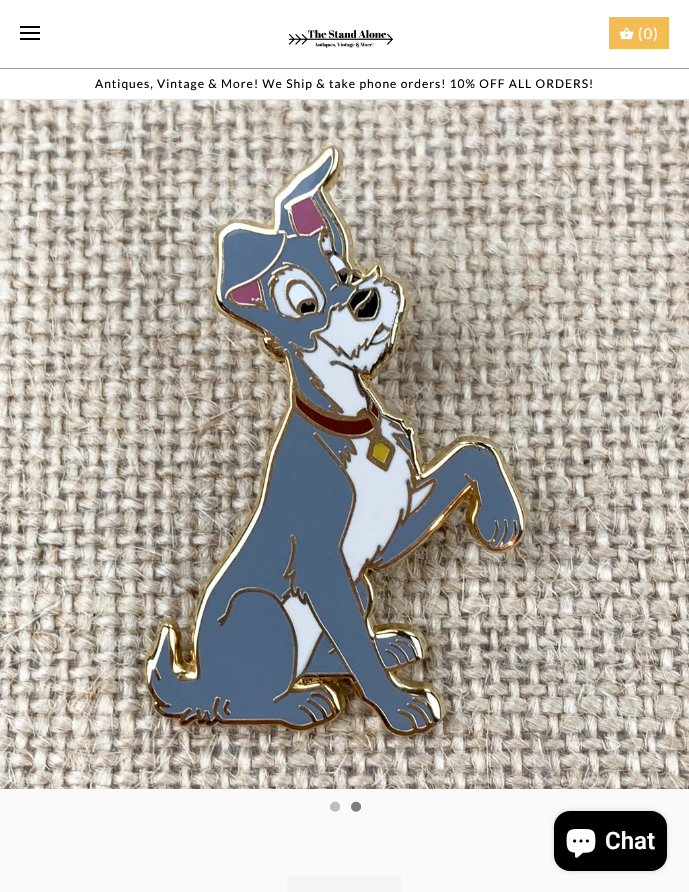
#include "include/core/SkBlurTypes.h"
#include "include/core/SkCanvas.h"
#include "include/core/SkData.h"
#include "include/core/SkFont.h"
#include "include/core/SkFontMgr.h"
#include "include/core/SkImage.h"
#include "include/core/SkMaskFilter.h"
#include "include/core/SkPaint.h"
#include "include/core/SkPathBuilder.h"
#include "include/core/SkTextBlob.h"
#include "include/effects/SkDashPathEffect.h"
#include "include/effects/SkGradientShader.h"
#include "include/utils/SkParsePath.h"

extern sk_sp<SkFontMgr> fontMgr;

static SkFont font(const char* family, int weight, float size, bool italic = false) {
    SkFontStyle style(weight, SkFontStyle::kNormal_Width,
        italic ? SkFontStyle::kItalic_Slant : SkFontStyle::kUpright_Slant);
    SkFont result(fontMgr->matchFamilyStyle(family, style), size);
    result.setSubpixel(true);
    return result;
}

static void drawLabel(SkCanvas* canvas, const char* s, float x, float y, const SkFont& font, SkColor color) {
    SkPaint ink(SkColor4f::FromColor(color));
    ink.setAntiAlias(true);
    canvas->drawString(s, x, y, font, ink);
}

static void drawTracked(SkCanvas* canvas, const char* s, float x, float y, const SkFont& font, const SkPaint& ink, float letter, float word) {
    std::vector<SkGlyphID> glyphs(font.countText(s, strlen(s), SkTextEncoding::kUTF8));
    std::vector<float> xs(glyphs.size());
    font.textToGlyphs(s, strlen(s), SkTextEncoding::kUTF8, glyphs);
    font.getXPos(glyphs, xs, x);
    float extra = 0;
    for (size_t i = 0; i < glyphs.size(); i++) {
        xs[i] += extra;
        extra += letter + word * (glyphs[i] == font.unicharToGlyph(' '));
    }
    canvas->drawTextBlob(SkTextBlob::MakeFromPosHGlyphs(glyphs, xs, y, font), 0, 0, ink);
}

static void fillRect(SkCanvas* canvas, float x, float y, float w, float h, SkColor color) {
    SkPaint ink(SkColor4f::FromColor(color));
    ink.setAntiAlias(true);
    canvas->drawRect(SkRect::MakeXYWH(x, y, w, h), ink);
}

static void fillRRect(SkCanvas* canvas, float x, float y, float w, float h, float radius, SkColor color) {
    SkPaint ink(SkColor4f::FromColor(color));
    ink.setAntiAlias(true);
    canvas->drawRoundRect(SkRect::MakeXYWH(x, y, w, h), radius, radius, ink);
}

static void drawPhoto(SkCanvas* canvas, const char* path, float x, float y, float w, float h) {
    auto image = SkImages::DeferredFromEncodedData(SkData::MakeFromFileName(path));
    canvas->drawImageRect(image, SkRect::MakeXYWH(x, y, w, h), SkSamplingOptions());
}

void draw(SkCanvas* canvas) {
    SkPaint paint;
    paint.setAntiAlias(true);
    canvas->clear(0xFFFAFAFA);
    fillRect(canvas, 0, 0, 689, 68, 0xFFFFFFFF);
    fillRect(canvas, 0, 68, 689, 1, 0xFF9F9F9F);
    fillRect(canvas, 20, 26, 20, 2, 0xFF000000);
    fillRect(canvas, 20, 32, 20, 2, 0xFF000000);
    fillRect(canvas, 20, 38, 20, 2, 0xFF000000);
    drawPhoto(canvas, "assets/img1.png", 288, 29, 106, 19);
    fillRect(canvas, 609, 17, 60, 32, 0xFFF3BD54);
    drawPhoto(canvas, "assets/img2.png", 619, 27, 15, 13);
    SkFont font1 = font("Lato", 400, 15);
    paint.setColor(0xFFFFFFFF);
    drawTracked(canvas, "(0)", 638, 39, font1, paint, 1, 0);
    fillRect(canvas, 0, 69, 689, 30, 0xFFFFFFFF);
    fillRect(canvas, 0, 99, 689, 1, 0xFFE2E2E2);
    SkFont font2 = font("Lato", 400, 12);
    paint.setColor(0xFF020101);
    drawTracked(canvas, "Antiques, Vintage & More! We Ship & take phone orders! 10% OFF ALL ORDERS!", 95, 88, font2, paint, 1, 0);
    drawPhoto(canvas, "assets/img3.png", 0, 100, 689, 689);
    SkFont font3 = font("Liberation Mono", 400, 37);
    paint.setColor(0xFFBCBCBC);
    drawTracked(canvas, "•", 324, 819, font3, paint, 1, 0);
    paint.setColor(0xFF7D7D7D);
    drawTracked(canvas, "•", 345, 819, font3, paint, 1, 0);
    fillRect(canvas, 287, 876, 115, 16, 0xFFF5F5F5);
    paint.setColor(0x26000000);
    paint.setMaskFilter(SkMaskFilter::MakeBlur(kNormal_SkBlurStyle, 2.5f));
    canvas->drawRoundRect(SkRect::MakeXYWH(554, 811, 113, 60), 16, 16, paint);
    paint.setMaskFilter(nullptr);
    fillRRect(canvas, 554, 811, 113, 60, 16, 0xFF000000);
    drawPhoto(canvas, "assets/img4.png", 566, 829, 30, 29);
    SkFont font4 = font("Roboto", 600, 24);
    drawLabel(canvas, "Chat", 605, 849, font4, 0xFFFFFFFF);
}
